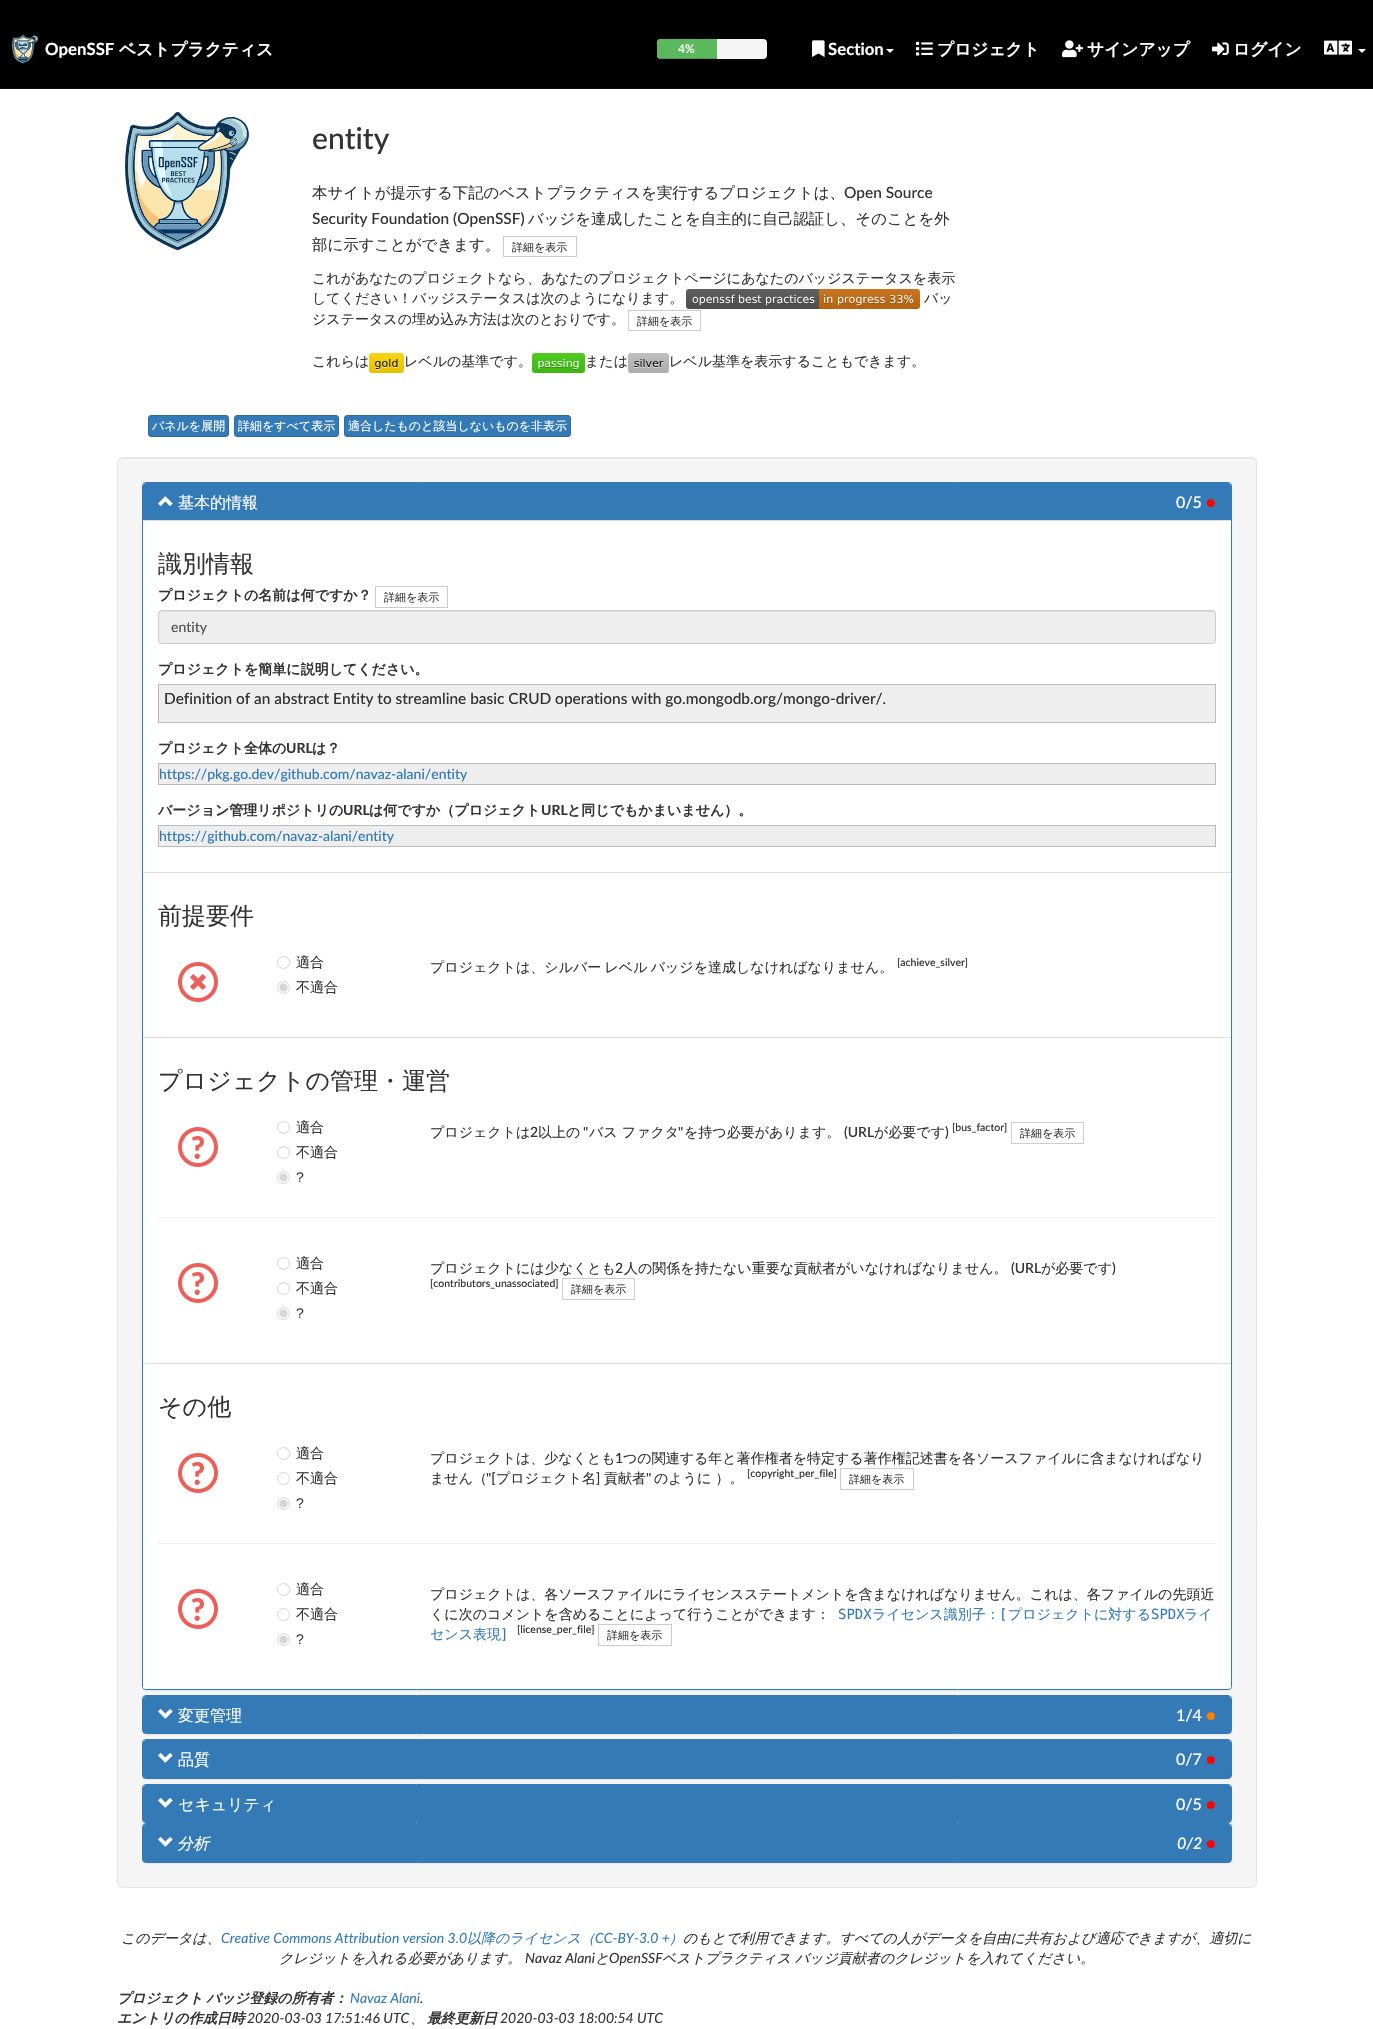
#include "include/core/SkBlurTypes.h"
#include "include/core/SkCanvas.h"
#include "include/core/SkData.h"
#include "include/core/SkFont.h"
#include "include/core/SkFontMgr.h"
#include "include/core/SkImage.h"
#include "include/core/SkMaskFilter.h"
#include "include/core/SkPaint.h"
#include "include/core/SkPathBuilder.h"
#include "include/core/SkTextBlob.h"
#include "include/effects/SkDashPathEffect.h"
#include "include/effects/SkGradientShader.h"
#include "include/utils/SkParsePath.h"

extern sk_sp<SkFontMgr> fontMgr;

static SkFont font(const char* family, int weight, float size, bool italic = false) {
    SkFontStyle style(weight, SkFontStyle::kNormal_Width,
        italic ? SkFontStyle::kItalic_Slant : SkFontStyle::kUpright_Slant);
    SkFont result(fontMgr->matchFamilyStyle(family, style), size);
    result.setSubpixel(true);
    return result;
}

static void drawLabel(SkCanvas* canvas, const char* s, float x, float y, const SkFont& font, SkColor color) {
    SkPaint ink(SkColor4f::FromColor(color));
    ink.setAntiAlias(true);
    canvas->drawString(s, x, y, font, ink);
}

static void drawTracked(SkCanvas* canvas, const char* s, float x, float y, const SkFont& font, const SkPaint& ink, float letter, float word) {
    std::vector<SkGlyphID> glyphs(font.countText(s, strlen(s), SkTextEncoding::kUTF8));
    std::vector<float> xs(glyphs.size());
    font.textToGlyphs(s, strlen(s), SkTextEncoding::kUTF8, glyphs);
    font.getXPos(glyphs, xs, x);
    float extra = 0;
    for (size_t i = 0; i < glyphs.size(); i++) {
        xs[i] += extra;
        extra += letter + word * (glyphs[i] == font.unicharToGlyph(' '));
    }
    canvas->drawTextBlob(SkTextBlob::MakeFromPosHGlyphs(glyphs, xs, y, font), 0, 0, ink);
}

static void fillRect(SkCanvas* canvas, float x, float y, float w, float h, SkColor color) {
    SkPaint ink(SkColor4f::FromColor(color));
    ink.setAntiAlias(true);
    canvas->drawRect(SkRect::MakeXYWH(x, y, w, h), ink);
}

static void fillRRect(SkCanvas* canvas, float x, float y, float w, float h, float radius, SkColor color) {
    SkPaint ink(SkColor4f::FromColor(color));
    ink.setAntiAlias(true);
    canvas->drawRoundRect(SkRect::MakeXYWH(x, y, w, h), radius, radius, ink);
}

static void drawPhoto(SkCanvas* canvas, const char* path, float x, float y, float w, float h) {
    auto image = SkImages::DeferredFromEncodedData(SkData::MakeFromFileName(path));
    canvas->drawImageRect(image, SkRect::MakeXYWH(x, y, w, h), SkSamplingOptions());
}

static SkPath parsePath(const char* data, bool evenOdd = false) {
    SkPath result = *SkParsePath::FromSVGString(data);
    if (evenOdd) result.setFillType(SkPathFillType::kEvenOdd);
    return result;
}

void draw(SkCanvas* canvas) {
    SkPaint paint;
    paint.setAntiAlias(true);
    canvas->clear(0xFFFFFFFF);
    fillRect(canvas, 0, 0, 1373, 88, 0xFF000000);
    fillRect(canvas, 0, 88, 1373, 1, 0xFF090909);
    drawPhoto(canvas, "assets/img1.png", 11, 34, 28, 30);
    SkFont font1 = font("Lato", 700, 16.75f);
    drawLabel(canvas, "OpenSSF", 45, 55, font1, 0xFFFFFFFF);
    SkFont font2 = font("WenQuanYi Zen Hei", 700, 16.75f);
    drawLabel(canvas, "ベストプラクティス", 119, 55, font2, 0xFFFFFFFF);
    fillRRect(canvas, 657, 39, 110, 20, 4, 0xFFF5F5F5);
    paint.setColor(0xFF5CB85C);
    canvas->drawPath(parsePath("M661 39H717V59H661C659 59 657 57 657 55V43C657 41 659 39 661 39Z"), paint);
    fillRect(canvas, 657, 58, 60, 1, 0x26000000);
    SkFont font3 = font("Lato", 500, 12);
    drawLabel(canvas, "4%", 678, 53, font3, 0xFFFFFFFF);
    drawPhoto(canvas, "assets/img2.png", 812, 40, 13, 17);
    drawLabel(canvas, "Section", 828, 55, font1, 0xFFFFFFFF);
    paint.setColor(0xFFFFFFFF);
    canvas->drawPath(parsePath("M886 49H894L890 53Z"), paint);
    drawPhoto(canvas, "assets/img3.png", 916, 41, 17, 15);
    drawLabel(canvas, "プロジェクト", 937, 55, font2, 0xFFFFFFFF);
    drawPhoto(canvas, "assets/img4.png", 1062, 40, 21, 18);
    drawLabel(canvas, "サインアップ", 1087, 55, font2, 0xFFFFFFFF);
    drawPhoto(canvas, "assets/img5.png", 1212, 42, 17, 14);
    drawLabel(canvas, "ログイン", 1233, 55, font2, 0xFFFFFFFF);
    drawPhoto(canvas, "assets/img6.png", 1324, 40, 28, 15);
    canvas->drawPath(parsePath("M1358 49H1366L1362 53Z"), paint);
    drawPhoto(canvas, "assets/img7.png", 125, 112, 124, 139);
    SkFont font4 = font("Lato", 500, 30);
    drawLabel(canvas, "entity", 312, 149, font4, 0xFF333333);
    SkFont font5 = font("WenQuanYi Zen Hei", 500, 15.4f);
    drawLabel(canvas, "本サイトが提示する下記のベストプラクティスを実行するプロジェクトは、", 312, 198, font5, 0xFF333333);
    SkFont font6 = font("Lato", 500, 15.4f);
    drawLabel(canvas, "Open Source", 844, 198, font6, 0xFF333333);
    drawLabel(canvas, "Security Foundation (OpenSSF)", 312, 224, font6, 0xFF333333);
    drawLabel(canvas, "バッジを達成したことを自主的に自己認証し、そのことを外", 528, 224, font5, 0xFF333333);
    drawLabel(canvas, "部に示すことができます。", 312, 250, font5, 0xFF333333);
    paint.setStroke(true);
    paint.setStrokeWidth(1);
    paint.setColor(0xFFCCCCCC);
    canvas->drawRect(SkRect::MakeXYWH(503.5f, 236.5f, 73, 20), paint);
    SkFont font7 = font("WenQuanYi Zen Hei", 500, 11);
    drawLabel(canvas, "詳細を表示", 512, 251, font7, 0xFF333333);
    SkFont font8 = font("WenQuanYi Zen Hei", 500, 14);
    drawLabel(canvas, "これがあなたのプロジェクトなら、あなたのプロジェクトページにあなたのバッジステータスを表示", 312, 283, font8, 0xFF333333);
    drawLabel(canvas, "してください！バッジステータスは次のようになります。", 312, 303, font8, 0xFF333333);
    drawPhoto(canvas, "assets/img8.png", 686, 289, 234, 20);
    drawLabel(canvas, "バッ", 924, 303, font8, 0xFF333333);
    drawLabel(canvas, "ジステータスの埋め込み方法は次のとおりです。", 312, 324, font8, 0xFF333333);
    canvas->drawRect(SkRect::MakeXYWH(628.5f, 310.5f, 72, 20), paint);
    drawLabel(canvas, "詳細を表示", 637, 325, font7, 0xFF333333);
    drawLabel(canvas, "これらは", 312, 366, font8, 0xFF333333);
    drawPhoto(canvas, "assets/img9.png", 369, 353, 35, 20);
    drawLabel(canvas, "レベルの基準です。", 404, 366, font8, 0xFF333333);
    drawPhoto(canvas, "assets/img10.png", 532, 353, 53, 20);
    drawLabel(canvas, "または", 585, 366, font8, 0xFF333333);
    drawPhoto(canvas, "assets/img11.png", 628, 353, 41, 20);
    drawLabel(canvas, "レベル基準を表示することもできます。", 669, 366, font8, 0xFF333333);
    paint.setStroke(false);
    paint.setColor(0xFF337AB7);
    canvas->drawRoundRect(SkRect::MakeXYWH(148.5f, 415.5f, 80, 21), 2.5f, 2.5f, paint);
    paint.setStroke(true);
    paint.setColor(0xFF2E6DA4);
    canvas->drawRoundRect(SkRect::MakeXYWH(148.5f, 415.5f, 80, 21), 2.5f, 2.5f, paint);
    SkFont font9 = font("WenQuanYi Zen Hei", 500, 12);
    drawLabel(canvas, "パネルを展開", 152, 430, font9, 0xFFFFFFFF);
    paint.setStroke(false);
    paint.setColor(0xFF337AB7);
    canvas->drawRoundRect(SkRect::MakeXYWH(234.5f, 415.5f, 104, 21), 2.5f, 2.5f, paint);
    paint.setStroke(true);
    paint.setColor(0xFF2E6DA4);
    canvas->drawRoundRect(SkRect::MakeXYWH(234.5f, 415.5f, 104, 21), 2.5f, 2.5f, paint);
    drawLabel(canvas, "詳細をすべて表示", 238, 430, font9, 0xFFFFFFFF);
    paint.setStroke(false);
    paint.setColor(0xFF337AB7);
    canvas->drawRoundRect(SkRect::MakeXYWH(344.5f, 415.5f, 226, 21), 2.5f, 2.5f, paint);
    paint.setStroke(true);
    paint.setColor(0xFF2E6DA4);
    canvas->drawRoundRect(SkRect::MakeXYWH(344.5f, 415.5f, 226, 21), 2.5f, 2.5f, paint);
    drawLabel(canvas, "適合したものと該当しないものを非表示", 348, 430, font9, 0xFFFFFFFF);
    fillRRect(canvas, 117, 457, 1140, 1431, 6, 0xFFF5F5F5);
    paint.setStroke(false);
    paint.setColor(0xFFE9E9E9);
    canvas->drawPath(parsePath("M123 459H1251C1254 459 1256 461 1256 464C1256 461 1254 458 1251 458H123C120 458 118 461 118 464C118 461 120 459 123 459Z"), paint);
    paint.setStroke(true);
    paint.setColor(0xFFE3E3E3);
    canvas->drawRoundRect(SkRect::MakeXYWH(117.5f, 457.5f, 1139, 1430), 5.5f, 5.5f, paint);
    paint.setStroke(false);
    paint.setColor(0x0D000000);
    paint.setMaskFilter(SkMaskFilter::MakeBlur(kNormal_SkBlurStyle, 0.5f));
    canvas->drawRoundRect(SkRect::MakeXYWH(142, 483, 1090, 1208), 4, 4, paint);
    paint.setMaskFilter(nullptr);
    paint.setColor(0xFFFFFFFF);
    canvas->drawRoundRect(SkRect::MakeXYWH(142.5f, 482.5f, 1089, 1207), 3.5f, 3.5f, paint);
    paint.setStroke(true);
    paint.setColor(0xFF337AB7);
    canvas->drawRoundRect(SkRect::MakeXYWH(142.5f, 482.5f, 1089, 1207), 3.5f, 3.5f, paint);
    paint.setStroke(false);
    canvas->drawPath(parsePath("M146 483H1228C1229.5 483 1231 484.5 1231 486V520H143V486C143 484.5 144.5 483 146 483Z"), paint);
    drawPhoto(canvas, "assets/img12.png", 158, 496, 15, 11);
    SkFont font10 = font("WenQuanYi Zen Hei", 500, 16);
    drawLabel(canvas, "基本的情報", 178, 508, font10, 0xFFFFFFFF);
    SkFont font11 = font("Lato", 500, 16);
    drawLabel(canvas, "0/5", 1176, 508, font11, 0xFFFFFFFF);
    drawLabel(canvas, "●", 1206, 508, font11, 0xFFFF0000);
    fillRect(canvas, 143, 520, 1088, 1, 0xFFDDDDDD);
    fillRect(canvas, 143, 872, 1088, 1, 0xFFDDDDDD);
    SkFont font12 = font("WenQuanYi Zen Hei", 500, 24);
    drawLabel(canvas, "識別情報", 158, 572, font12, 0xFF333333);
    SkFont font13 = font("WenQuanYi Zen Hei", 700, 14);
    drawLabel(canvas, "プロジェクトの名前は何ですか？", 158, 600, font13, 0xFF333333);
    paint.setStroke(true);
    paint.setColor(0xFFCCCCCC);
    canvas->drawRect(SkRect::MakeXYWH(375.5f, 586.5f, 72, 21), paint);
    drawLabel(canvas, "詳細を表示", 384, 601, font7, 0xFF333333);
    fillRRect(canvas, 158, 610, 1058, 34, 4, 0xFFEEEEEE);
    paint.setStroke(false);
    paint.setColor(0xFFDCDCDC);
    canvas->drawPath(parsePath("M162 612H1212C1214 612 1215 613 1215 615C1215 613 1214 611 1212 611H162C160 611 159 613 159 615C159 613 160 612 162 612Z"), paint);
    paint.setStroke(true);
    paint.setColor(0xFFCCCCCC);
    canvas->drawRoundRect(SkRect::MakeXYWH(158.5f, 610.5f, 1057, 33), 3.5f, 3.5f, paint);
    SkFont font14 = font("Lato", 500, 14);
    drawLabel(canvas, "entity", 171, 632, font14, 0xFF555555);
    drawLabel(canvas, "プロジェクトを簡単に説明してください。", 158, 674, font13, 0xFF333333);
    paint.setStroke(false);
    paint.setColor(0xFFEEEEEE);
    canvas->drawRect(SkRect::MakeXYWH(158.5f, 684.5f, 1057, 38), paint);
    paint.setStroke(true);
    paint.setColor(0xFFBBBBBB);
    canvas->drawRect(SkRect::MakeXYWH(158.5f, 684.5f, 1057, 38), paint);
    drawLabel(canvas, "Definition of an abstract Entity to streamline basic CRUD operations with go.mongodb.org/mongo-driver/.", 164, 704, font6, 0xFF333333);
    drawLabel(canvas, "プロジェクト全体の", 158, 753, font13, 0xFF333333);
    SkFont font15 = font("Lato", 700, 14);
    drawLabel(canvas, "URL", 286, 753, font15, 0xFF333333);
    drawLabel(canvas, "は？", 312, 753, font13, 0xFF333333);
    paint.setStroke(false);
    paint.setColor(0xFFEEEEEE);
    canvas->drawRect(SkRect::MakeXYWH(158.5f, 763.5f, 1057, 21), paint);
    paint.setStroke(true);
    paint.setColor(0xFFBBBBBB);
    canvas->drawRect(SkRect::MakeXYWH(158.5f, 763.5f, 1057, 21), paint);
    drawLabel(canvas, "https://pkg.go.dev/github.com/navaz-alani/entity", 159, 779, font14, 0xFF337AB7);
    drawLabel(canvas, "バージョン管理リポジトリの", 158, 815, font13, 0xFF333333);
    drawLabel(canvas, "URL", 343, 815, font15, 0xFF333333);
    drawLabel(canvas, "は何ですか（プロジェクト", 369, 815, font13, 0xFF333333);
    drawLabel(canvas, "URL", 541, 815, font15, 0xFF333333);
    drawLabel(canvas, "と同じでもかまいません）。", 567, 815, font13, 0xFF333333);
    paint.setStroke(false);
    paint.setColor(0xFFEEEEEE);
    canvas->drawRect(SkRect::MakeXYWH(158.5f, 825.5f, 1057, 21), paint);
    paint.setStroke(true);
    paint.setColor(0xFFBBBBBB);
    canvas->drawRect(SkRect::MakeXYWH(158.5f, 825.5f, 1057, 21), paint);
    drawLabel(canvas, "https://github.com/navaz-alani/entity", 159, 841, font14, 0xFF337AB7);
    fillRect(canvas, 143, 1037, 1088, 1, 0xFFDDDDDD);
    drawLabel(canvas, "前提要件", 158, 924, font12, 0xFF333333);
    drawPhoto(canvas, "assets/img13.png", 178, 962, 40, 40);
    paint.setColor(0xFFD6D6D6);
    canvas->drawCircle(283.5f, 962.5f, 6, paint);
    drawLabel(canvas, "適合", 296, 967, font8, 0xFF333333);
    canvas->drawCircle(283.5f, 987.5f, 6, paint);
    paint.setStroke(false);
    canvas->drawCircle(283.5f, 987.5f, 4, paint);
    drawLabel(canvas, "不適合", 296, 992, font8, 0xFF333333);
    paint.setColor(0xFF333333);
    drawTracked(canvas, "プロジェクトは、シルバー レベル バッジを達成しなければなりません。", 430, 972, font8, paint, 0, -1);
    SkFont font16 = font("Lato", 500, 10.5f);
    drawLabel(canvas, "[achieve_silver]", 897, 966, font16, 0xFF333333);
    drawLabel(canvas, "プロジェクトの管理・運営", 158, 1089, font12, 0xFF333333);
    drawPhoto(canvas, "assets/img14.png", 178, 1127, 40, 40);
    paint.setStroke(true);
    paint.setColor(0xFFD6D6D6);
    canvas->drawCircle(283.5f, 1127.5f, 6, paint);
    drawLabel(canvas, "適合", 296, 1132, font8, 0xFF333333);
    canvas->drawCircle(283.5f, 1152.5f, 6, paint);
    drawLabel(canvas, "不適合", 296, 1157, font8, 0xFF333333);
    canvas->drawCircle(283.5f, 1177.5f, 6, paint);
    paint.setStroke(false);
    canvas->drawCircle(283.5f, 1177.5f, 4, paint);
    SkFont font17 = font("Liberation Sans", 400, 14);
    drawLabel(canvas, "?", 296, 1182, font17, 0xFF333333);
    drawLabel(canvas, "プロジェクトは", 430, 1137, font8, 0xFF333333);
    drawLabel(canvas, "2", 530, 1137, font14, 0xFF333333);
    drawLabel(canvas, "以上の", 538, 1137, font8, 0xFF333333);
    drawLabel(canvas, "\"", 583, 1137, font14, 0xFF333333);
    drawLabel(canvas, "バス ファクタ", 589, 1137, font8, 0xFF333333);
    drawLabel(canvas, "\"", 678, 1137, font14, 0xFF333333);
    drawLabel(canvas, "を持つ必要があります。", 684, 1137, font8, 0xFF333333);
    drawLabel(canvas, "(URL", 844, 1137, font14, 0xFF333333);
    drawLabel(canvas, "が必要です", 874, 1137, font8, 0xFF333333);
    drawLabel(canvas, ")", 945, 1137, font14, 0xFF333333);
    drawLabel(canvas, "[bus_factor]", 952, 1131, font16, 0xFF333333);
    paint.setStroke(true);
    paint.setColor(0xFFCCCCCC);
    canvas->drawRect(SkRect::MakeXYWH(1011.5f, 1122.5f, 72, 21), paint);
    drawLabel(canvas, "詳細を表示", 1020, 1137, font7, 0xFF333333);
    fillRect(canvas, 158, 1217, 1058, 1, 0xFFEEEEEE);
    drawPhoto(canvas, "assets/img14.png", 178, 1263, 40, 40);
    paint.setColor(0xFFD6D6D6);
    canvas->drawCircle(283.5f, 1263.5f, 6, paint);
    drawLabel(canvas, "適合", 296, 1268, font8, 0xFF333333);
    canvas->drawCircle(283.5f, 1288.5f, 6, paint);
    drawLabel(canvas, "不適合", 296, 1293, font8, 0xFF333333);
    canvas->drawCircle(283.5f, 1313.5f, 6, paint);
    paint.setStroke(false);
    canvas->drawCircle(283.5f, 1313.5f, 4, paint);
    drawLabel(canvas, "?", 296, 1318, font17, 0xFF333333);
    drawLabel(canvas, "プロジェクトには少なくとも", 430, 1273, font8, 0xFF333333);
    drawLabel(canvas, "2", 615, 1273, font14, 0xFF333333);
    drawLabel(canvas, "人の関係を持たない重要な貢献者がいなければなりません。", 624, 1273, font8, 0xFF333333);
    drawLabel(canvas, "(URL", 1011, 1273, font14, 0xFF333333);
    drawLabel(canvas, "が必要です", 1041, 1273, font8, 0xFF333333);
    drawLabel(canvas, ")", 1112, 1273, font14, 0xFF333333);
    drawLabel(canvas, "[contributors_unassociated]", 430, 1287, font16, 0xFF333333);
    paint.setStroke(true);
    paint.setColor(0xFFCCCCCC);
    canvas->drawRect(SkRect::MakeXYWH(562.5f, 1278.5f, 72, 21), paint);
    drawLabel(canvas, "詳細を表示", 571, 1293, font7, 0xFF333333);
    paint.setStroke(false);
    paint.setColor(0xFFFFFFFF);
    canvas->drawPath(parsePath("M143 1363H1231V1686C1231 1687.5 1229.5 1689 1228 1689H146C144.5 1689 143 1687.5 143 1686Z"), paint);
    fillRect(canvas, 143, 1363, 1088, 1, 0xFFDDDDDD);
    drawLabel(canvas, "その他", 158, 1415, font12, 0xFF333333);
    drawPhoto(canvas, "assets/img14.png", 178, 1453, 40, 40);
    paint.setStroke(true);
    paint.setColor(0xFFD6D6D6);
    canvas->drawCircle(283.5f, 1453.5f, 6, paint);
    drawLabel(canvas, "適合", 296, 1458, font8, 0xFF333333);
    canvas->drawCircle(283.5f, 1478.5f, 6, paint);
    drawLabel(canvas, "不適合", 296, 1483, font8, 0xFF333333);
    canvas->drawCircle(283.5f, 1503.5f, 6, paint);
    paint.setStroke(false);
    canvas->drawCircle(283.5f, 1503.5f, 4, paint);
    drawLabel(canvas, "?", 296, 1508, font17, 0xFF333333);
    drawLabel(canvas, "プロジェクトは、少なくとも", 430, 1463, font8, 0xFF333333);
    drawLabel(canvas, "1", 615, 1463, font14, 0xFF333333);
    drawLabel(canvas, "つの関連する年と著作権者を特定する著作権記述書を各ソースファイルに含まなければなり", 623, 1463, font8, 0xFF333333);
    drawLabel(canvas, "ません（", 430, 1483, font8, 0xFF333333);
    drawLabel(canvas, "\"[", 486, 1483, font14, 0xFF333333);
    drawLabel(canvas, "プロジェクト名", 496, 1483, font8, 0xFF333333);
    drawLabel(canvas, "]", 596, 1483, font14, 0xFF333333);
    drawLabel(canvas, "貢献者", 604, 1483, font8, 0xFF333333);
    drawLabel(canvas, "\"", 646, 1483, font14, 0xFF333333);
    drawLabel(canvas, "のように ）。", 654, 1483, font8, 0xFF333333);
    drawLabel(canvas, "[copyright_per_file]", 747, 1477, font16, 0xFF333333);
    paint.setStroke(true);
    paint.setColor(0xFFCCCCCC);
    canvas->drawRect(SkRect::MakeXYWH(840.5f, 1468.5f, 73, 21), paint);
    drawLabel(canvas, "詳細を表示", 849, 1483, font7, 0xFF333333);
    fillRect(canvas, 158, 1543, 1058, 1, 0xFFEEEEEE);
    drawPhoto(canvas, "assets/img14.png", 178, 1589, 40, 40);
    paint.setColor(0xFFD6D6D6);
    canvas->drawCircle(283.5f, 1589.5f, 6, paint);
    drawLabel(canvas, "適合", 296, 1594, font8, 0xFF333333);
    canvas->drawCircle(283.5f, 1614.5f, 6, paint);
    drawLabel(canvas, "不適合", 296, 1619, font8, 0xFF333333);
    canvas->drawCircle(283.5f, 1639.5f, 6, paint);
    paint.setStroke(false);
    canvas->drawCircle(283.5f, 1639.5f, 4, paint);
    drawLabel(canvas, "?", 296, 1644, font17, 0xFF333333);
    drawLabel(canvas, "プロジェクトは、各ソースファイルにライセンスステートメントを含まなければなりません。これは、各ファイルの先頭近", 430, 1599, font8, 0xFF333333);
    drawLabel(canvas, "くに次のコメントを含めることによって行うことができます：", 430, 1619, font8, 0xFF333333);
    SkFont font18 = font("DejaVu Sans Mono", 400, 14);
    drawLabel(canvas, "SPDX", 838, 1619, font18, 0xFF337AB7);
    drawLabel(canvas, "ライセンス識別子：", 872, 1619, font8, 0xFF337AB7);
    drawLabel(canvas, "[", 999, 1619, font18, 0xFF337AB7);
    drawLabel(canvas, "プロジェクトに対する", 1008, 1619, font8, 0xFF337AB7);
    drawLabel(canvas, "SPDX", 1151, 1619, font18, 0xFF337AB7);
    drawLabel(canvas, "ライ", 1184, 1619, font8, 0xFF337AB7);
    drawLabel(canvas, "センス表現", 430, 1639, font8, 0xFF337AB7);
    drawLabel(canvas, "]", 500, 1639, font18, 0xFF337AB7);
    drawLabel(canvas, "[license_per_file]", 517, 1633, font16, 0xFF333333);
    paint.setStroke(true);
    paint.setColor(0xFFCCCCCC);
    canvas->drawRect(SkRect::MakeXYWH(598.5f, 1624.5f, 73, 21), paint);
    drawLabel(canvas, "詳細を表示", 607, 1639, font7, 0xFF333333);
    paint.setStroke(false);
    paint.setColor(0x0D000000);
    paint.setMaskFilter(SkMaskFilter::MakeBlur(kNormal_SkBlurStyle, 0.5f));
    canvas->drawRoundRect(SkRect::MakeXYWH(142, 1696, 1090, 39), 4, 4, paint);
    paint.setMaskFilter(nullptr);
    paint.setStroke(true);
    paint.setColor(0xFF337AB7);
    canvas->drawRoundRect(SkRect::MakeXYWH(142.5f, 1695.5f, 1089, 38), 3.5f, 3.5f, paint);
    paint.setStroke(false);
    canvas->drawPath(parsePath("M146 1696H1228C1229.5 1696 1231 1697.5 1231 1699V1733H143V1699C143 1697.5 144.5 1696 146 1696Z"), paint);
    drawPhoto(canvas, "assets/img15.png", 158, 1708, 15, 11);
    drawLabel(canvas, "変更管理", 178, 1721, font10, 0xFFFFFFFF);
    drawLabel(canvas, "1/4", 1176, 1721, font11, 0xFFFFFFFF);
    drawLabel(canvas, "●", 1206, 1721, font11, 0xFFFF8000);
    paint.setColor(0x0D000000);
    paint.setMaskFilter(SkMaskFilter::MakeBlur(kNormal_SkBlurStyle, 0.5f));
    canvas->drawRoundRect(SkRect::MakeXYWH(142, 1740, 1090, 40), 4, 4, paint);
    paint.setMaskFilter(nullptr);
    paint.setStroke(true);
    paint.setColor(0xFF337AB7);
    canvas->drawRoundRect(SkRect::MakeXYWH(142.5f, 1739.5f, 1089, 39), 3.5f, 3.5f, paint);
    paint.setStroke(false);
    canvas->drawPath(parsePath("M146 1740H1228C1229.5 1740 1231 1741.5 1231 1743V1778H143V1743C143 1741.5 144.5 1740 146 1740Z"), paint);
    drawPhoto(canvas, "assets/img15.png", 158, 1752, 15, 11);
    drawLabel(canvas, "品質", 178, 1765, font10, 0xFFFFFFFF);
    drawLabel(canvas, "0/7", 1176, 1765, font11, 0xFFFFFFFF);
    drawLabel(canvas, "●", 1206, 1765, font11, 0xFFFF0000);
    paint.setColor(0x0D000000);
    paint.setMaskFilter(SkMaskFilter::MakeBlur(kNormal_SkBlurStyle, 0.5f));
    canvas->drawRoundRect(SkRect::MakeXYWH(142, 1785, 1090, 39), 4, 4, paint);
    paint.setMaskFilter(nullptr);
    paint.setStroke(true);
    paint.setColor(0xFF337AB7);
    canvas->drawRoundRect(SkRect::MakeXYWH(142.5f, 1784.5f, 1089, 38), 3.5f, 3.5f, paint);
    paint.setStroke(false);
    canvas->drawPath(parsePath("M146 1785H1228C1229.5 1785 1231 1786.5 1231 1788V1822H143V1788C143 1786.5 144.5 1785 146 1785Z"), paint);
    drawPhoto(canvas, "assets/img15.png", 158, 1797, 15, 11);
    drawLabel(canvas, "セキュリティ", 178, 1810, font10, 0xFFFFFFFF);
    drawLabel(canvas, "0/5", 1176, 1810, font11, 0xFFFFFFFF);
    drawLabel(canvas, "●", 1206, 1810, font11, 0xFFFF0000);
    paint.setColor(0x0D000000);
    paint.setMaskFilter(SkMaskFilter::MakeBlur(kNormal_SkBlurStyle, 0.5f));
    canvas->drawRoundRect(SkRect::MakeXYWH(142, 1824, 1090, 40), 4, 4, paint);
    paint.setMaskFilter(nullptr);
    paint.setStroke(true);
    paint.setColor(0xFF337AB7);
    canvas->drawRoundRect(SkRect::MakeXYWH(142.5f, 1823.5f, 1089, 39), 3.5f, 3.5f, paint);
    paint.setStroke(false);
    canvas->drawPath(parsePath("M146 1824H1228C1229.5 1824 1231 1825.5 1231 1827V1862H143V1827C143 1825.5 144.5 1824 146 1824Z"), paint);
    drawPhoto(canvas, "assets/img15.png", 158, 1836, 15, 11);
    SkFont font19 = font("WenQuanYi Zen Hei", 500, 16, true);
    drawLabel(canvas, "分析", 177, 1849, font19, 0xFFFFFFFF);
    SkFont font20 = font("Lato", 500, 16, true);
    drawLabel(canvas, "0/2", 1177, 1849, font20, 0xFFFFFFFF);
    drawLabel(canvas, "●", 1206, 1849, font20, 0xFFFF0000);
    SkFont font21 = font("WenQuanYi Zen Hei", 500, 14, true);
    drawLabel(canvas, "このデータは、", 121, 1943, font21, 0xFF333333);
    SkFont font22 = font("Lato", 400, 14, true);
    drawLabel(canvas, "Creative Commons Attribution version 3.0", 221, 1943, font22, 0xFF337AB7);
    drawLabel(canvas, "以降のライセンス（", 467, 1943, font21, 0xFF337AB7);
    drawLabel(canvas, "CC-BY-3.0 +", 595, 1943, font22, 0xFF337AB7);
    drawLabel(canvas, "）", 669, 1943, font21, 0xFF337AB7);
    drawLabel(canvas, "のもとで利用できます。すべての人がデータを自由に共有および適応できますが、適切に", 683, 1943, font21, 0xFF333333);
    drawLabel(canvas, "クレジットを入れる必要があります。", 279, 1963, font21, 0xFF333333);
    drawLabel(canvas, "Navaz Alani", 525, 1963, font22, 0xFF333333);
    drawLabel(canvas, "と", 595, 1963, font21, 0xFF333333);
    drawLabel(canvas, "OpenSSF", 609, 1963, font22, 0xFF333333);
    drawLabel(canvas, "ベストプラクティス", 662, 1963, font21, 0xFF333333);
    drawLabel(canvas, "バッジ貢献者のクレジットを入れてください。", 795, 1963, font21, 0xFF333333);
    SkFont font23 = font("WenQuanYi Zen Hei", 700, 14, true);
    paint.setColor(0xFF333333);
    drawTracked(canvas, "プロジェクト バッジ登録の所有者：", 117, 2003, font23, paint, 0, -1);
    drawLabel(canvas, "Navaz Alani", 350, 2003, font22, 0xFF337AB7);
    drawLabel(canvas, ".", 420, 2003, font22, 0xFF333333);
    drawLabel(canvas, "エントリの作成日時", 117, 2023, font23, 0xFF333333);
    drawLabel(canvas, "2020-03-03 17:51:46 UTC", 247, 2023, font22, 0xFF333333);
    drawLabel(canvas, "、", 410, 2023, font21, 0xFF333333);
    drawLabel(canvas, "最終更新日", 427, 2023, font23, 0xFF333333);
    drawLabel(canvas, "2020-03-03 18:00:54 UTC", 500, 2023, font22, 0xFF333333);
}
